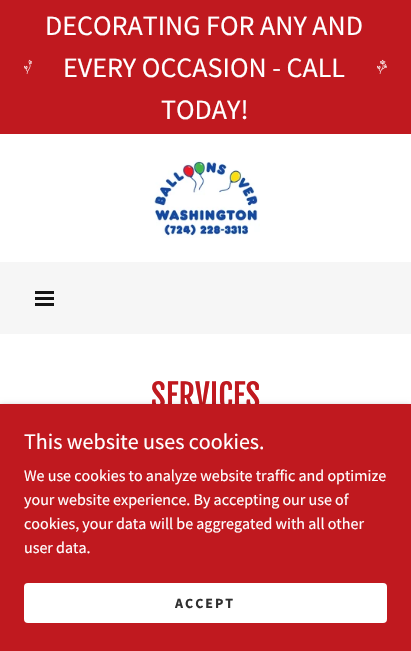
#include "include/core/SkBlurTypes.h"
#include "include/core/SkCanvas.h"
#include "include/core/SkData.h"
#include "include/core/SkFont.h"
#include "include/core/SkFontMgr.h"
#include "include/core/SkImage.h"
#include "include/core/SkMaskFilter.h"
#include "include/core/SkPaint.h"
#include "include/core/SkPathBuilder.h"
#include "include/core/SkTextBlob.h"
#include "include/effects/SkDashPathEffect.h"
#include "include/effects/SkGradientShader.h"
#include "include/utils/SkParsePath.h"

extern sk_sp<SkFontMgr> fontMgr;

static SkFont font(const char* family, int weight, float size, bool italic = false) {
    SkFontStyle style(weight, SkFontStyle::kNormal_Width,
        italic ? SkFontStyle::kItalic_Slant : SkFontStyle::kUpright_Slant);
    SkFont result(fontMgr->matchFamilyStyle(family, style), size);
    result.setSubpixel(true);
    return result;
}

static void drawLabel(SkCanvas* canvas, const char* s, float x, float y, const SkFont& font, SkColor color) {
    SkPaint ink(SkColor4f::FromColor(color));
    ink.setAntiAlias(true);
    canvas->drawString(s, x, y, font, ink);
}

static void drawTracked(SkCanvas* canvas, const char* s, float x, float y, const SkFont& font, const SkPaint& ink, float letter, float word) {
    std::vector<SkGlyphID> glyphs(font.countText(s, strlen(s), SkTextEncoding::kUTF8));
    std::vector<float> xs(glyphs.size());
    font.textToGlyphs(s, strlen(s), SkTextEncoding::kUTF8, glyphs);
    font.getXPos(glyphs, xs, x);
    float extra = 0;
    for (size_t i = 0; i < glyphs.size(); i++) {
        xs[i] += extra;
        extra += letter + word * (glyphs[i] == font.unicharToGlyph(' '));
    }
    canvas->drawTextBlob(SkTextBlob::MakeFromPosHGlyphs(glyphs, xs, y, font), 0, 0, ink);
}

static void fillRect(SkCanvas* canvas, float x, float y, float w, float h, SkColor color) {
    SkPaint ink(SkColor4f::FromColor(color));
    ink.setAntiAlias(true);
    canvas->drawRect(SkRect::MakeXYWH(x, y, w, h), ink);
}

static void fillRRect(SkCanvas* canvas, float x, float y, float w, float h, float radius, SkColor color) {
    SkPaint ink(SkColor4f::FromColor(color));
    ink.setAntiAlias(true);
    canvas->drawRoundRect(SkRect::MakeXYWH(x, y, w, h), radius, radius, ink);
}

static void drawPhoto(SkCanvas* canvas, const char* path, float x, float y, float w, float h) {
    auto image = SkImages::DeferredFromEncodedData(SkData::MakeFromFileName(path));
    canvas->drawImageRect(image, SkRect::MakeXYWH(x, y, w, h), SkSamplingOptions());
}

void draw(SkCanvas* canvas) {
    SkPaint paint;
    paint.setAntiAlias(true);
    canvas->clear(0xFFFFFFFF);
    fillRect(canvas, 0, 0, 411, 134, 0xFFC0191F);
    drawPhoto(canvas, "assets/img1.png", 24, 59, 8, 15);
    SkFont font1 = font("Source Sans Pro", 400, 28);
    drawLabel(canvas, "DECORATING FOR ANY AND", 45, 35, font1, 0xFFFFFFFF);
    drawLabel(canvas, "EVERY OCCASION - CALL", 63, 77, font1, 0xFFFFFFFF);
    drawLabel(canvas, "TODAY!", 161, 119, font1, 0xFFFFFFFF);
    drawPhoto(canvas, "assets/img2.png", 377, 59, 10, 15);
    drawPhoto(canvas, "assets/img3.png", 150, 160, 110, 78);
    fillRect(canvas, 0, 262, 411, 72, 0xFFF6F6F6);
    fillRect(canvas, 35, 291, 19, 3, 0xFF151515);
    fillRect(canvas, 35, 297, 19, 3, 0xFF151515);
    fillRect(canvas, 35, 303, 19, 3, 0xFF151515);
    SkFont font2 = font("Fjalla One", 400, 32);
    drawLabel(canvas, "SERVICES", 151, 408, font2, 0xFFC0191F);
    paint.setColor(0x4D000000);
    paint.setMaskFilter(SkMaskFilter::MakeBlur(kNormal_SkBlurStyle, 3));
    canvas->drawRect(SkRect::MakeXYWH(0, 406, 411, 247), paint);
    paint.setMaskFilter(nullptr);
    fillRect(canvas, 0, 404, 411, 247, 0xFFC0191F);
    SkFont font3 = font("Source Sans Pro", 400, 22);
    drawLabel(canvas, "This website uses cookies.", 24, 449, font3, 0xFFFFFFFF);
    SkFont font4 = font("Source Sans Pro", 400, 16);
    drawLabel(canvas, "We use cookies to analyze website traffic and optimize", 24, 481, font4, 0xFFFFFFFF);
    drawLabel(canvas, "your website experience. By accepting our use of", 24, 505, font4, 0xFFFFFFFF);
    drawLabel(canvas, "cookies, your data will be aggregated with all other", 24, 529, font4, 0xFFFFFFFF);
    drawLabel(canvas, "user data.", 24, 553, font4, 0xFFFFFFFF);
    fillRRect(canvas, 24, 583, 363, 40, 4, 0xFFFFFFFF);
    SkFont font5 = font("Source Sans Pro", 700, 14);
    paint.setColor(0xFF303030);
    drawTracked(canvas, "ACCEPT", 175, 608, font5, paint, 2, 0);
}
